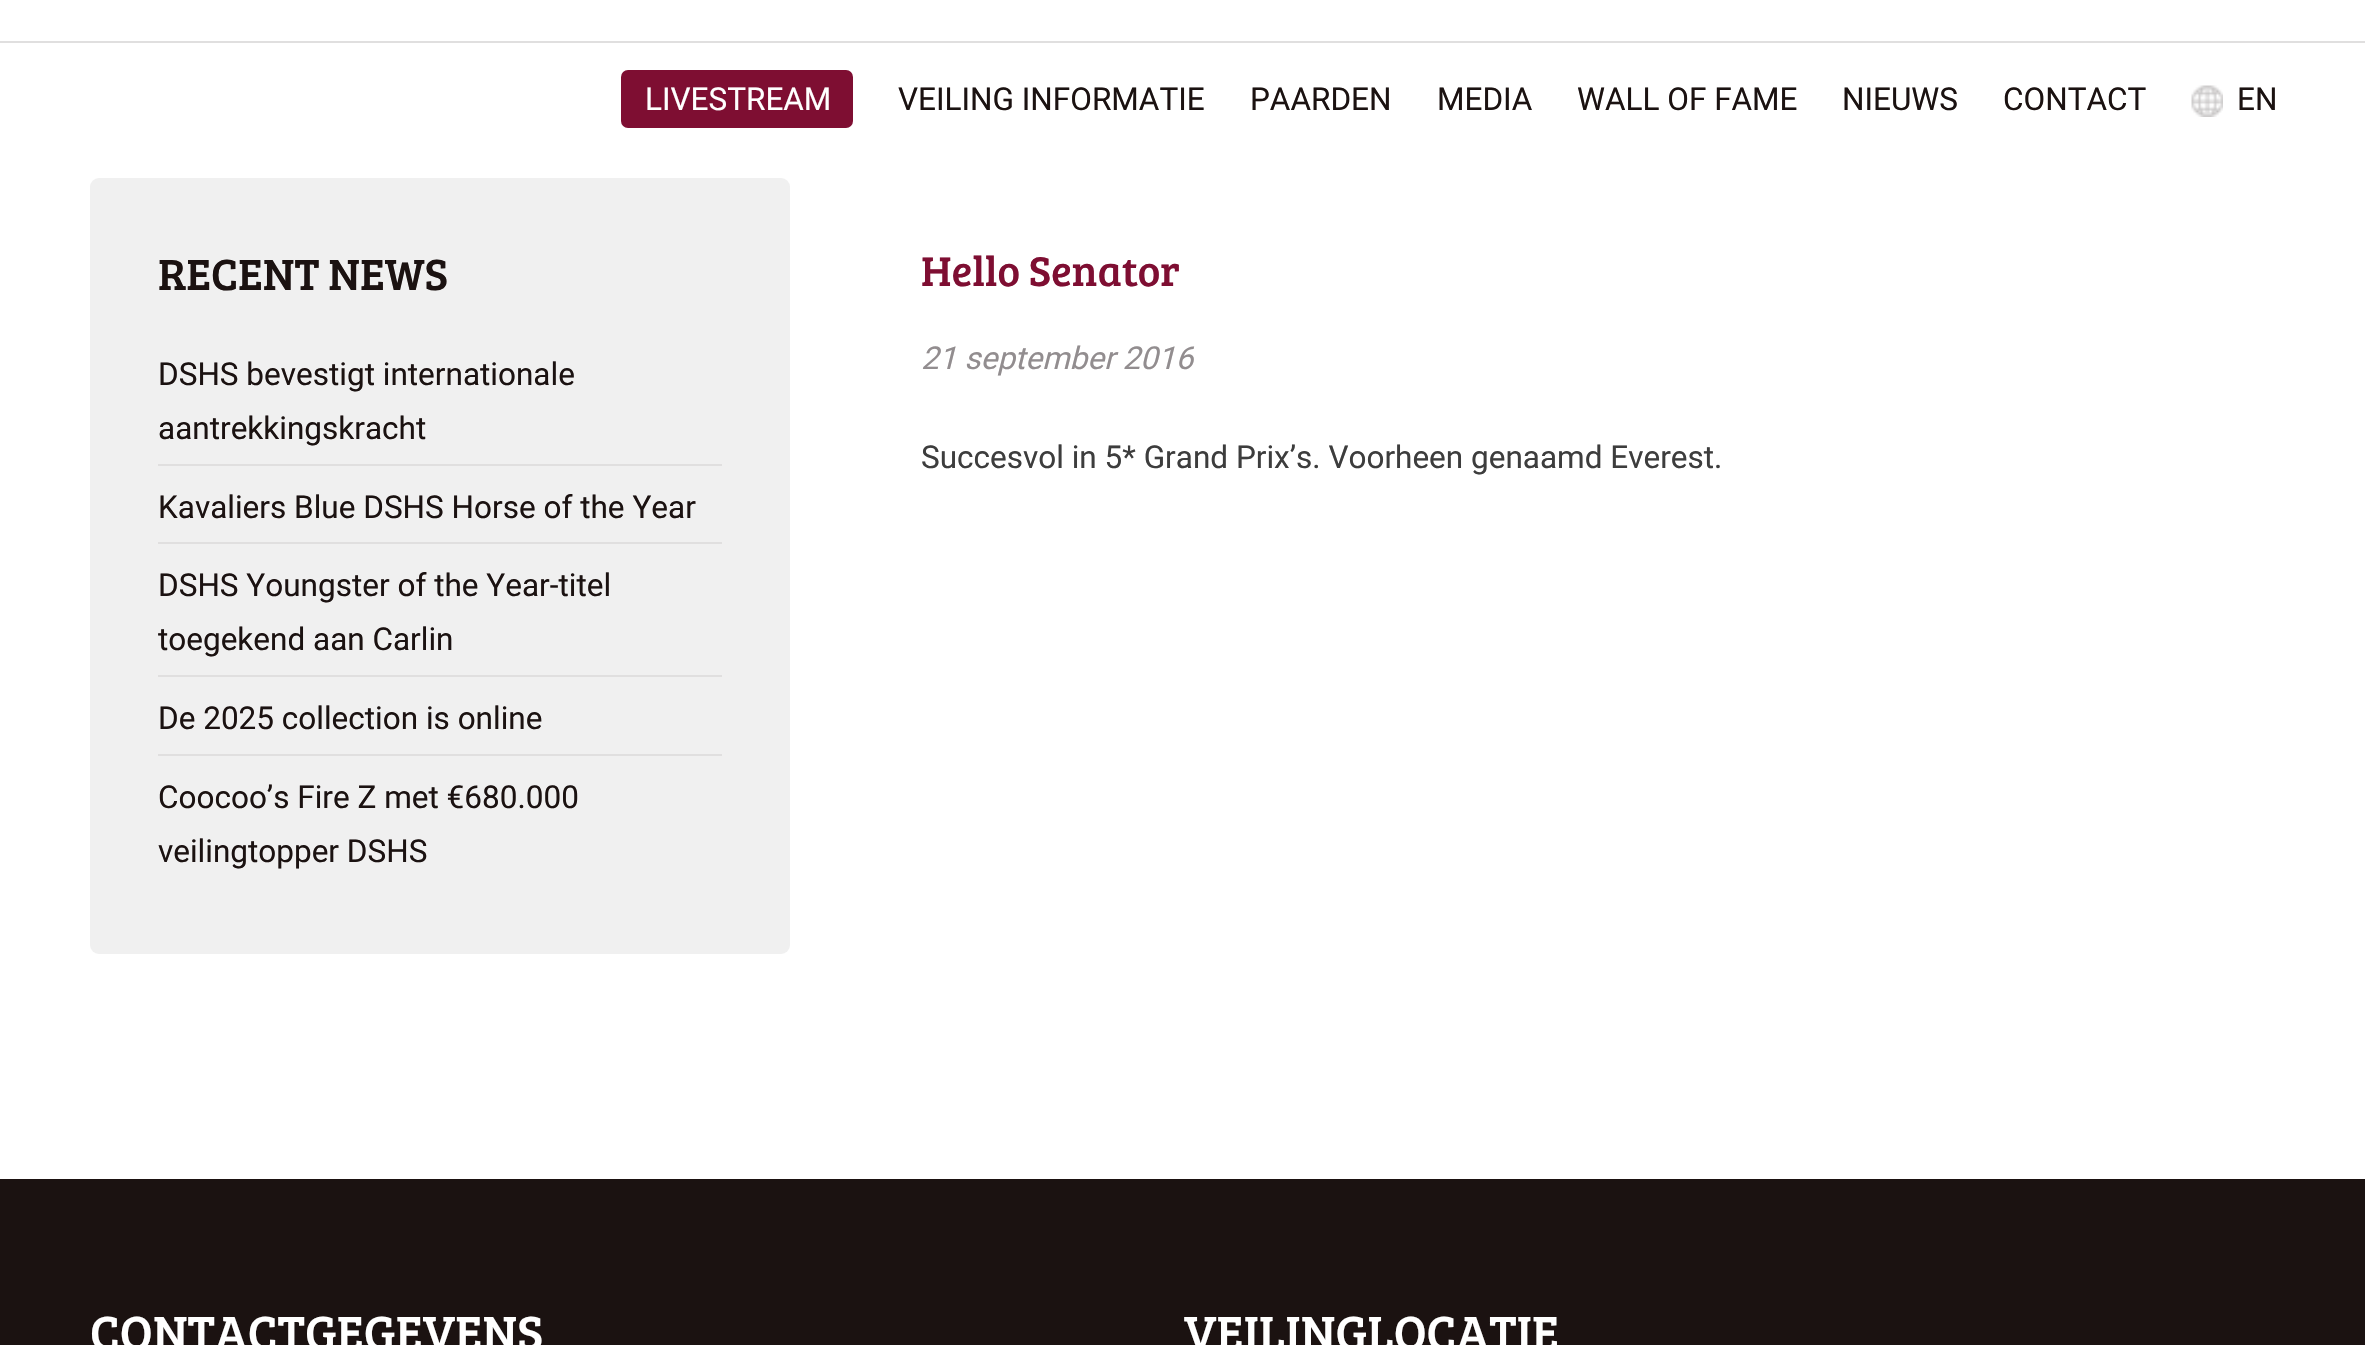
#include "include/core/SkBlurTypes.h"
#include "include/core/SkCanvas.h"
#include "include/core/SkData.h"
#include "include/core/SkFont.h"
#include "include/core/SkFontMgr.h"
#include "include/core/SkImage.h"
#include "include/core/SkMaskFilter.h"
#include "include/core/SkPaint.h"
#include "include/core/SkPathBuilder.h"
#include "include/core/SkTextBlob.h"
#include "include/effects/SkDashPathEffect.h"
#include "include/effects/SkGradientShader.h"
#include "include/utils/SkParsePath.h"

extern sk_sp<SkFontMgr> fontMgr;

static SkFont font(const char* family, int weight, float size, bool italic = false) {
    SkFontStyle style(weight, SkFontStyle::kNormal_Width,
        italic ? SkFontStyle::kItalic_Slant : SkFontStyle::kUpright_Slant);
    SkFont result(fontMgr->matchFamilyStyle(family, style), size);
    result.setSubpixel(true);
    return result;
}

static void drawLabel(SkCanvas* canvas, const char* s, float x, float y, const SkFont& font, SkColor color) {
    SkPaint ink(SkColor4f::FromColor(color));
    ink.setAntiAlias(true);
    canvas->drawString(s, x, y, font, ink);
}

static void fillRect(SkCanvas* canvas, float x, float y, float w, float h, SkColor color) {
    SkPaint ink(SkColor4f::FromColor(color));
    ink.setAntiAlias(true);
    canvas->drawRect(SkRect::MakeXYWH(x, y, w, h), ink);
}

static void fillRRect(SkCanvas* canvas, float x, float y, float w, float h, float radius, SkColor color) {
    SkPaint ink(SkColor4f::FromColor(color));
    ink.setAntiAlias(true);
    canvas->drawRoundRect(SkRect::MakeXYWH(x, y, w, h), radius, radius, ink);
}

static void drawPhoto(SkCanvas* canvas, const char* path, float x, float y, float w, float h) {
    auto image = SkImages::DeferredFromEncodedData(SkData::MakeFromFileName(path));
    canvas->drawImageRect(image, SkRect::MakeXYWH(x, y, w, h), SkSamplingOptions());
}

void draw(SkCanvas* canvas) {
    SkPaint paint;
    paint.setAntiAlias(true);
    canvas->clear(0xFFFFFFFF);
    fillRect(canvas, 0, 41, 2365, 2, 0xFFE0DFDF);
    fillRRect(canvas, 621, 70, 232, 58, 7, 0xFF7E0E32);
    SkFont font1 = font("Roboto", 400, 31.5f);
    drawLabel(canvas, "LIVESTREAM", 645, 110, font1, 0xFFFFFFFF);
    drawLabel(canvas, "VEILING INFORMATIE", 898, 110, font1, 0xFF1B1211);
    drawLabel(canvas, "PAARDEN", 1250, 110, font1, 0xFF1B1211);
    drawLabel(canvas, "MEDIA", 1437, 110, font1, 0xFF1B1211);
    drawLabel(canvas, "WALL OF FAME", 1577, 110, font1, 0xFF1B1211);
    drawLabel(canvas, "NIEUWS", 1842, 110, font1, 0xFF1B1211);
    drawLabel(canvas, "CONTACT", 2003, 110, font1, 0xFF1B1211);
    drawPhoto(canvas, "assets/img1.png", 2191, 85, 32, 32);
    drawLabel(canvas, "EN", 2237, 110, font1, 0xFF1B1211);
    fillRRect(canvas, 90, 178, 700, 776, 9, 0xFFF0F0F0);
    SkFont font2 = font("Bree Serif", 400, 45);
    drawLabel(canvas, "RECENT NEWS", 158, 290, font2, 0xFF1B1211);
    fillRect(canvas, 158, 464, 564, 2, 0xFFE0DFDF);
    drawLabel(canvas, "DSHS bevestigt internationale", 158, 385, font1, 0xFF1B1211);
    drawLabel(canvas, "aantrekkingskracht", 158, 439, font1, 0xFF1B1211);
    fillRect(canvas, 158, 542, 564, 2, 0xFFE0DFDF);
    drawLabel(canvas, "Kavaliers Blue DSHS Horse of the Year", 158, 518, font1, 0xFF1B1211);
    fillRect(canvas, 158, 675, 564, 2, 0xFFE0DFDF);
    drawLabel(canvas, "DSHS Youngster of the Year-titel", 158, 596, font1, 0xFF1B1211);
    drawLabel(canvas, "toegekend aan Carlin", 158, 650, font1, 0xFF1B1211);
    fillRect(canvas, 158, 754, 564, 2, 0xFFE0DFDF);
    drawLabel(canvas, "De 2025 collection is online", 158, 729, font1, 0xFF1B1211);
    drawLabel(canvas, "Coocoo’s Fire Z met €680.000", 158, 808, font1, 0xFF1B1211);
    drawLabel(canvas, "veilingtopper DSHS", 158, 862, font1, 0xFF1B1211);
    SkFont font3 = font("Bree Serif", 400, 42.75f);
    drawLabel(canvas, "Hello Senator", 921, 286, font3, 0xFF7E0E32);
    SkFont font4 = font("Roboto", 400, 31.5f, true);
    drawLabel(canvas, "21 september 2016", 921, 369, font4, 0xFF928D8F);
    drawLabel(canvas, "Succesvol in 5* Grand Prix’s. Voorheen genaamd Everest.", 921, 468, font1, 0xFF3D3D3D);
    fillRect(canvas, 0, 1179, 2365, 166, 0xFF1B1211);
    SkFont font5 = font("Bree Serif", 400, 49.5f);
    drawLabel(canvas, "CONTACTGEGEVENS", 90, 1350, font5, 0xFFFFFFFF);
    drawLabel(canvas, "VEILINGLOCATIE", 1184, 1350, font5, 0xFFFFFFFF);
}
